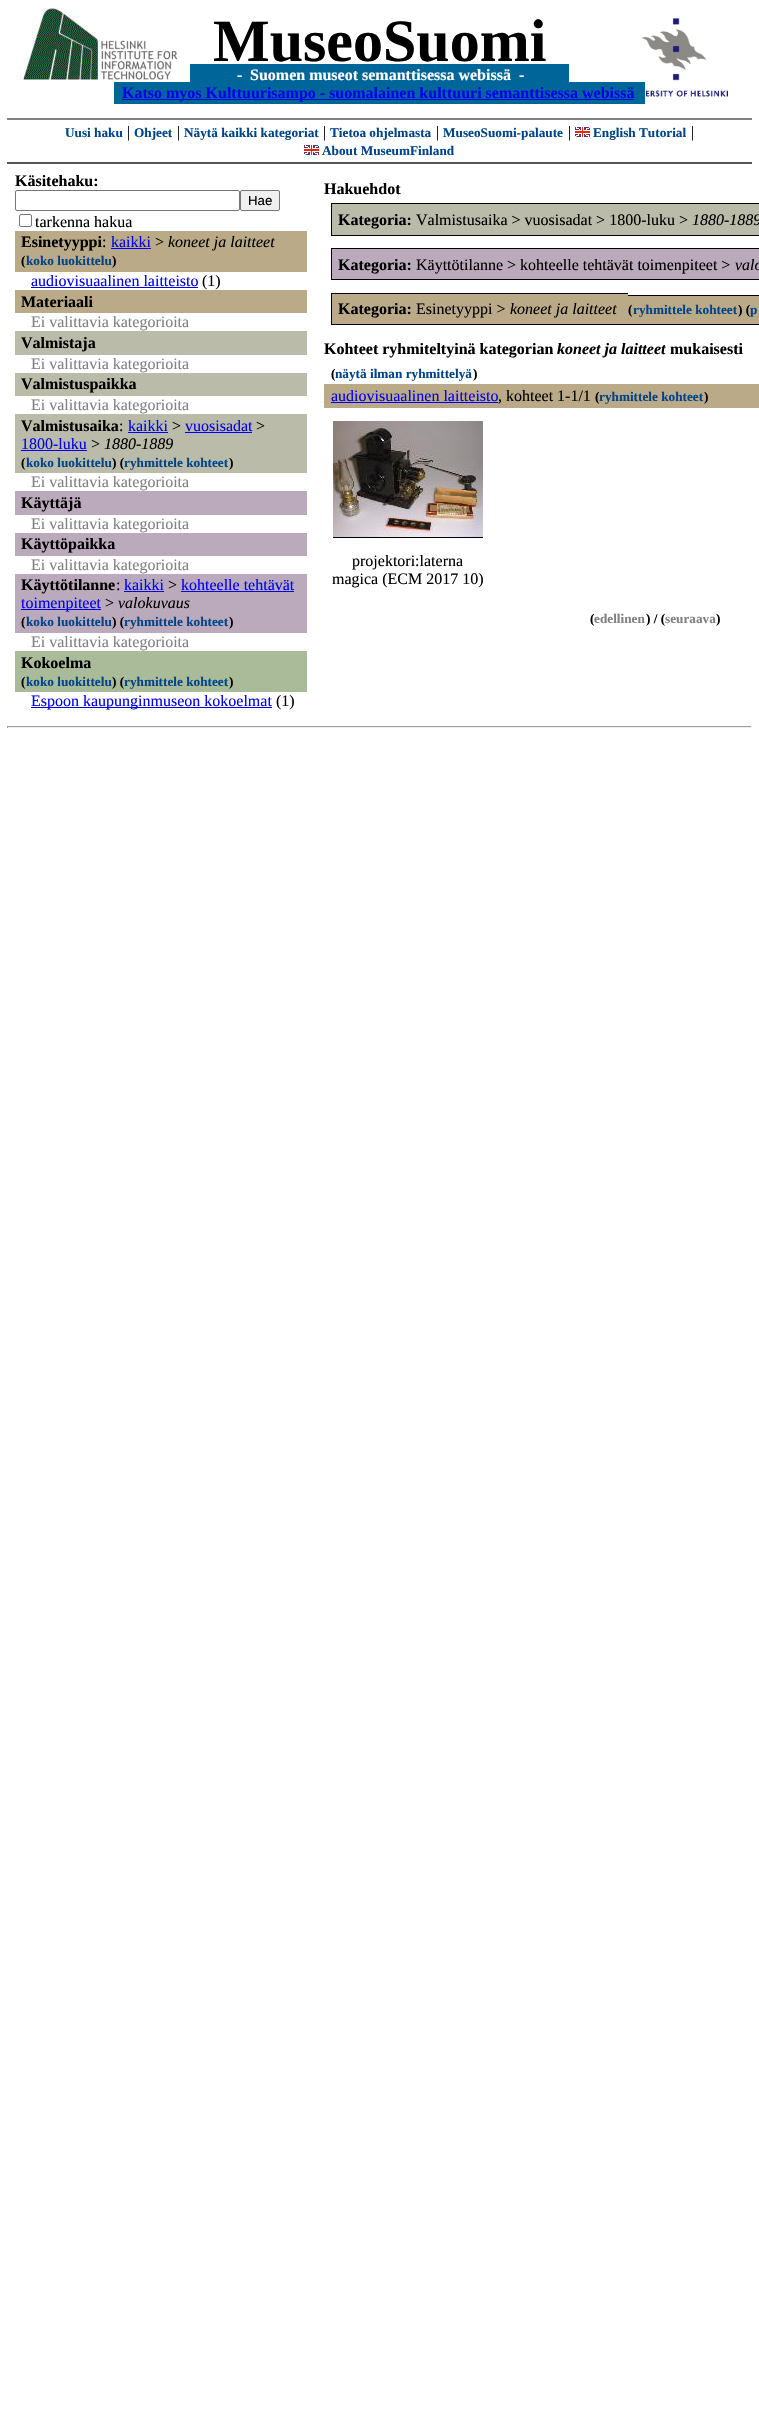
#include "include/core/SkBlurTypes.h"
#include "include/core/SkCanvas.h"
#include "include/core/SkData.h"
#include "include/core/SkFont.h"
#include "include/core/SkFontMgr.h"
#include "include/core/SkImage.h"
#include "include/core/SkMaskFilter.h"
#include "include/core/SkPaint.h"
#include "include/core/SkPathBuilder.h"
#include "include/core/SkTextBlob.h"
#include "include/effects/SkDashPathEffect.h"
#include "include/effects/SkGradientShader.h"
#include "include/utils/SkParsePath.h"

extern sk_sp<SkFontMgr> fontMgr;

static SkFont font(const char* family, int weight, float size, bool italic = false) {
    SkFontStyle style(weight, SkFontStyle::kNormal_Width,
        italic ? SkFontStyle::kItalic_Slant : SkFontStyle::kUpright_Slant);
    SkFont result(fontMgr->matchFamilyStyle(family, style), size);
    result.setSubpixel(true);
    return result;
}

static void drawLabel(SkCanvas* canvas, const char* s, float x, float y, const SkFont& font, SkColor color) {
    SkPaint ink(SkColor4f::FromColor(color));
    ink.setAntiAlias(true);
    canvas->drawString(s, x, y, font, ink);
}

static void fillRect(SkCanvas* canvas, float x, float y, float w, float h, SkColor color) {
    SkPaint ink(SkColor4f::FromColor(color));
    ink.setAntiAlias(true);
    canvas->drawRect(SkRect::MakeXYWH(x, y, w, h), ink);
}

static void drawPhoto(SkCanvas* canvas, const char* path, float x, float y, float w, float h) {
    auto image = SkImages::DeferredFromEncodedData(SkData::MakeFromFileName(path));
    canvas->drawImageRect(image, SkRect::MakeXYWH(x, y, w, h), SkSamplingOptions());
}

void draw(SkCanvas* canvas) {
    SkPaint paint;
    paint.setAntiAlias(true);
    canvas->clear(0xFFFFFFFF);
    drawPhoto(canvas, "assets/img1.png", 23, 8, 155, 72);
    SkFont font1 = font("Liberation Serif", 700, 60);
    drawLabel(canvas, "MuseoSuomi", 213, 61, font1, 0xFF000000);
    drawPhoto(canvas, "assets/img2.png", 642, 18, 86, 79);
    fillRect(canvas, 190, 64, 379, 18, 0xFF006699);
    SkFont font2 = font("Liberation Serif", 700, 16);
    drawLabel(canvas, "-", 237, 80, font2, 0xFFFFFFFF);
    drawLabel(canvas, "Suomen museot semanttisessa webissä", 250, 80, font2, 0xFFFFFFFF);
    drawLabel(canvas, "-", 519, 80, font2, 0xFFFFFFFF);
    fillRect(canvas, 114, 82, 531, 22, 0xFF006699);
    fillRect(canvas, 122, 99, 512, 1, 0xFF0000EE);
    drawLabel(canvas, "Katso myos Kulttuurisampo - suomalainen kulttuuri semanttisessa webissä", 122, 98, font2, 0xFF0000EE);
    fillRect(canvas, 7, 118, 745, 2, 0xFF808080);
    fillRect(canvas, 7, 162, 745, 2, 0xFF555555);
    SkFont font3 = font("Liberation Serif", 700, 13.25f);
    drawLabel(canvas, "Uusi haku", 65, 137, font3, 0xFF004488);
    SkFont font4 = font("Liberation Serif", 400, 16);
    drawLabel(canvas, "|", 127, 137, font4, 0xFF000000);
    drawLabel(canvas, "Ohjeet", 134, 137, font3, 0xFF004488);
    drawLabel(canvas, "|", 177, 137, font4, 0xFF000000);
    drawLabel(canvas, "Näytä kaikki kategoriat", 184, 137, font3, 0xFF004488);
    drawLabel(canvas, "|", 323, 137, font4, 0xFF000000);
    drawLabel(canvas, "Tietoa ohjelmasta", 330, 137, font3, 0xFF004488);
    drawLabel(canvas, "|", 436, 137, font4, 0xFF000000);
    drawLabel(canvas, "MuseoSuomi-palaute", 443, 137, font3, 0xFF004488);
    drawLabel(canvas, "|", 568, 137, font4, 0xFF000000);
    drawPhoto(canvas, "assets/img3.png", 575, 127, 15, 10);
    drawLabel(canvas, "English Tutorial", 593, 137, font3, 0xFF004488);
    drawLabel(canvas, "|", 691, 137, font4, 0xFF000000);
    drawPhoto(canvas, "assets/img3.png", 304, 145, 15, 10);
    drawLabel(canvas, "About MuseumFinland", 322, 155, font3, 0xFF004488);
    drawLabel(canvas, "Käsitehaku:", 15, 186, font2, 0xFF000000);
    paint.setStroke(true);
    paint.setStrokeWidth(1);
    paint.setColor(0xFF767676);
    canvas->drawRoundRect(SkRect::MakeXYWH(15.5f, 190.5f, 224, 20), 1.5f, 1.5f, paint);
    paint.setStroke(false);
    paint.setColor(0xFFEFEFEF);
    canvas->drawRoundRect(SkRect::MakeXYWH(240.5f, 190.5f, 39, 20), 1.5f, 1.5f, paint);
    paint.setStroke(true);
    paint.setColor(0xFF767676);
    canvas->drawRoundRect(SkRect::MakeXYWH(240.5f, 190.5f, 39, 20), 1.5f, 1.5f, paint);
    SkFont font5 = font("Liberation Sans", 400, 13.25f);
    drawLabel(canvas, "Hae", 248, 205, font5, 0xFF000000);
    canvas->drawRoundRect(SkRect::MakeXYWH(19.5f, 214.5f, 12, 12), 1.5f, 1.5f, paint);
    drawLabel(canvas, "tarkenna hakua", 35, 227, font4, 0xFF000000);
    fillRect(canvas, 15, 231, 292, 41, 0xFFBBAA88);
    drawLabel(canvas, "Esinetyyppi", 21, 247, font2, 0xFF000000);
    drawLabel(canvas, ":", 102, 247, font4, 0xFF000000);
    drawLabel(canvas, "kaikki", 111, 247, font4, 0xFF0000EE);
    fillRect(canvas, 111, 248, 40, 1, 0xFF0000EE);
    drawLabel(canvas, ">", 155, 247, font4, 0xFF000000);
    SkFont font6 = font("Liberation Serif", 400, 16, true);
    drawLabel(canvas, "koneet ja laitteet", 168, 247, font6, 0xFF000000);
    drawLabel(canvas, "(", 21, 265, font3, 0xFF000000);
    drawLabel(canvas, "koko luokittelu", 26, 265, font3, 0xFF004488);
    drawLabel(canvas, ")", 112, 265, font3, 0xFF000000);
    drawLabel(canvas, "audiovisuaalinen laitteisto", 31, 286, font4, 0xFF0000EE);
    fillRect(canvas, 31, 287, 167, 1, 0xFF0000EE);
    drawLabel(canvas, "(1)", 202, 286, font4, 0xFF000000);
    fillRect(canvas, 15, 290, 292, 23, 0xFFBBAA88);
    drawLabel(canvas, "Materiaali", 21, 307, font2, 0xFF000000);
    drawLabel(canvas, "Ei valittavia kategorioita", 31, 327, font4, 0xFF808080);
    fillRect(canvas, 15, 331, 292, 24, 0xFFBBBBAA);
    drawLabel(canvas, "Valmistaja", 21, 348, font2, 0xFF000000);
    drawLabel(canvas, "Ei valittavia kategorioita", 31, 369, font4, 0xFF808080);
    fillRect(canvas, 15, 373, 292, 23, 0xFFBBBBAA);
    drawLabel(canvas, "Valmistuspaikka", 21, 389, font2, 0xFF000000);
    drawLabel(canvas, "Ei valittavia kategorioita", 31, 410, font4, 0xFF808080);
    fillRect(canvas, 15, 414, 292, 59, 0xFFBBBBAA);
    drawLabel(canvas, "Valmistusaika", 21, 431, font2, 0xFF000000);
    drawLabel(canvas, ":", 119, 431, font4, 0xFF000000);
    drawLabel(canvas, "kaikki", 128, 431, font4, 0xFF0000EE);
    fillRect(canvas, 128, 432, 40, 1, 0xFF0000EE);
    drawLabel(canvas, ">", 172, 431, font4, 0xFF000000);
    drawLabel(canvas, "vuosisadat", 185, 431, font4, 0xFF0000EE);
    fillRect(canvas, 185, 432, 67, 1, 0xFF0000EE);
    drawLabel(canvas, ">", 256, 431, font4, 0xFF000000);
    drawLabel(canvas, "1800-luku", 21, 449, font4, 0xFF0000EE);
    fillRect(canvas, 21, 450, 66, 1, 0xFF0000EE);
    drawLabel(canvas, ">", 91, 449, font4, 0xFF000000);
    drawLabel(canvas, "1880-1889", 104, 449, font6, 0xFF000000);
    drawLabel(canvas, "(", 21, 467, font3, 0xFF000000);
    drawLabel(canvas, "koko luokittelu", 26, 467, font3, 0xFF004488);
    drawLabel(canvas, ") (", 112, 467, font3, 0xFF000000);
    drawLabel(canvas, "ryhmittele kohteet", 124, 467, font3, 0xFF004488);
    drawLabel(canvas, ")", 229, 467, font3, 0xFF000000);
    drawLabel(canvas, "Ei valittavia kategorioita", 31, 487, font4, 0xFF808080);
    fillRect(canvas, 15, 491, 292, 24, 0xFFBBAABB);
    drawLabel(canvas, "Käyttäjä", 21, 508, font2, 0xFF000000);
    drawLabel(canvas, "Ei valittavia kategorioita", 31, 529, font4, 0xFF808080);
    fillRect(canvas, 15, 533, 292, 23, 0xFFBBAABB);
    drawLabel(canvas, "Käyttöpaikka", 21, 549, font2, 0xFF000000);
    drawLabel(canvas, "Ei valittavia kategorioita", 31, 570, font4, 0xFF808080);
    fillRect(canvas, 15, 574, 292, 59, 0xFFBBAABB);
    drawLabel(canvas, "Käyttötilanne", 21, 590, font2, 0xFF000000);
    drawLabel(canvas, ":", 116, 590, font4, 0xFF000000);
    drawLabel(canvas, "kaikki", 124, 590, font4, 0xFF0000EE);
    fillRect(canvas, 124, 591, 40, 1, 0xFF0000EE);
    drawLabel(canvas, ">", 168, 590, font4, 0xFF000000);
    drawLabel(canvas, "kohteelle tehtävät", 181, 590, font4, 0xFF0000EE);
    fillRect(canvas, 181, 591, 113, 1, 0xFF0000EE);
    fillRect(canvas, 21, 609, 80, 1, 0xFF0000EE);
    drawLabel(canvas, "toimenpiteet", 21, 608, font4, 0xFF0000EE);
    drawLabel(canvas, ">", 105, 608, font4, 0xFF000000);
    drawLabel(canvas, "valokuvaus", 118, 608, font6, 0xFF000000);
    drawLabel(canvas, "(", 21, 626, font3, 0xFF000000);
    drawLabel(canvas, "koko luokittelu", 26, 626, font3, 0xFF004488);
    drawLabel(canvas, ") (", 112, 626, font3, 0xFF000000);
    drawLabel(canvas, "ryhmittele kohteet", 124, 626, font3, 0xFF004488);
    drawLabel(canvas, ")", 229, 626, font3, 0xFF000000);
    drawLabel(canvas, "Ei valittavia kategorioita", 31, 647, font4, 0xFF808080);
    fillRect(canvas, 15, 651, 292, 41, 0xFFAABB99);
    drawLabel(canvas, "Kokoelma", 21, 668, font2, 0xFF000000);
    drawLabel(canvas, "(", 21, 686, font3, 0xFF000000);
    drawLabel(canvas, "koko luokittelu", 26, 686, font3, 0xFF004488);
    drawLabel(canvas, ") (", 112, 686, font3, 0xFF000000);
    drawLabel(canvas, "ryhmittele kohteet", 124, 686, font3, 0xFF004488);
    drawLabel(canvas, ")", 229, 686, font3, 0xFF000000);
    fillRect(canvas, 31, 707, 241, 1, 0xFF0000EE);
    drawLabel(canvas, "Espoon kaupunginmuseon kokoelmat", 31, 706, font4, 0xFF0000EE);
    drawLabel(canvas, "(1)", 276, 706, font4, 0xFF000000);
    drawLabel(canvas, "Hakuehdot", 324, 194, font2, 0xFF000000);
    fillRect(canvas, 332, 204, 427, 31, 0xFFBBBBAA);
    drawLabel(canvas, "Kategoria:", 338, 225, font2, 0xFF000000);
    fillRect(canvas, 331, 235, 428, 1, 0xFF000000);
    fillRect(canvas, 331, 203, 428, 1, 0xFF000000);
    fillRect(canvas, 331, 203, 1, 33, 0xFF000000);
    drawLabel(canvas, "Valmistusaika > vuosisadat > 1800-luku >", 416, 225, font4, 0xFF000000);
    drawLabel(canvas, "1880-1889", 692, 225, font6, 0xFF000000);
    fillRect(canvas, 332, 249, 427, 30, 0xFFBBAABB);
    drawLabel(canvas, "Kategoria:", 338, 270, font2, 0xFF000000);
    fillRect(canvas, 331, 279, 428, 1, 0xFF000000);
    fillRect(canvas, 331, 248, 428, 1, 0xFF000000);
    fillRect(canvas, 331, 248, 1, 32, 0xFF000000);
    drawLabel(canvas, "Käyttötilanne > kohteelle tehtävät toimenpiteet >", 416, 270, font4, 0xFF000000);
    drawLabel(canvas, "valo", 735, 270, font6, 0xFF000000);
    fillRect(canvas, 332, 294, 296, 30, 0xFFBBAA88);
    drawLabel(canvas, "Kategoria:", 338, 314, font2, 0xFF000000);
    fillRect(canvas, 331, 293, 297, 1, 0xFF000000);
    fillRect(canvas, 331, 324, 297, 1, 0xFF000000);
    fillRect(canvas, 331, 293, 1, 32, 0xFF000000);
    drawLabel(canvas, "Esinetyyppi >", 416, 314, font4, 0xFF000000);
    drawLabel(canvas, "koneet ja laitteet", 510, 314, font6, 0xFF000000);
    fillRect(canvas, 628, 295, 5, 30, 0xFFBBAA88);
    drawLabel(canvas, "(", 628, 314, font3, 0xFF000000);
    fillRect(canvas, 628, 295, 110, 1, 0xFF000000);
    fillRect(canvas, 628, 324, 110, 1, 0xFF000000);
    fillRect(canvas, 633, 296, 105, 28, 0xFFBBAA88);
    drawLabel(canvas, "ryhmittele kohteet", 633, 314, font3, 0xFF004488);
    fillRect(canvas, 738, 295, 12, 30, 0xFFBBAA88);
    fillRect(canvas, 738, 295, 21, 1, 0xFF000000);
    drawLabel(canvas, ") (", 738, 314, font3, 0xFF000000);
    fillRect(canvas, 750, 296, 9, 28, 0xFFBBAA88);
    drawLabel(canvas, "p", 750, 314, font3, 0xFF004488);
    fillRect(canvas, 738, 324, 21, 1, 0xFF000000);
    drawLabel(canvas, "Kohteet ryhmiteltyinä kategorian", 324, 354, font2, 0xFF000000);
    SkFont font7 = font("Liberation Serif", 700, 16, true);
    drawLabel(canvas, "koneet ja laitteet", 557, 354, font7, 0xFF000000);
    drawLabel(canvas, "mukaisesti", 670, 354, font2, 0xFF000000);
    drawLabel(canvas, "(", 331, 378, font3, 0xFF000000);
    drawLabel(canvas, "näytä ilman ryhmittelyä", 335, 378, font3, 0xFF004488);
    drawLabel(canvas, ")", 473, 378, font3, 0xFF000000);
    fillRect(canvas, 324, 384, 435, 24, 0xFFBBAA88);
    drawLabel(canvas, "audiovisuaalinen laitteisto", 331, 401, font4, 0xFF0000EE);
    fillRect(canvas, 331, 402, 167, 1, 0xFF0000EE);
    drawLabel(canvas, ", kohteet 1-1/1", 498, 401, font4, 0xFF000000);
    drawLabel(canvas, "(", 595, 401, font3, 0xFF000000);
    drawLabel(canvas, "ryhmittele kohteet", 599, 401, font3, 0xFF004488);
    drawLabel(canvas, ")", 704, 401, font3, 0xFF000000);
    drawPhoto(canvas, "assets/img4.png", 333, 421, 150, 117);
    drawLabel(canvas, "projektori:laterna", 352, 566, font4, 0xFF000000);
    drawLabel(canvas, "magica (ECM 2017 10)", 332, 584, font4, 0xFF000000);
    drawLabel(canvas, "(", 590, 623, font3, 0xFF000000);
    drawLabel(canvas, "edellinen", 594, 623, font3, 0xFF808080);
    drawLabel(canvas, ") / (", 646, 623, font3, 0xFF000000);
    drawLabel(canvas, "seuraava", 665, 623, font3, 0xFF808080);
    drawLabel(canvas, ")", 716, 623, font3, 0xFF000000);
    fillRect(canvas, 7, 726, 745, 1, 0xFF9F9F9F);
    fillRect(canvas, 751, 726, 1, 2, 0xFFEEEEEE);
    fillRect(canvas, 7, 727, 745, 1, 0xFFEEEEEE);
    fillRect(canvas, 7, 726, 1, 2, 0xFF9F9F9F);
}
